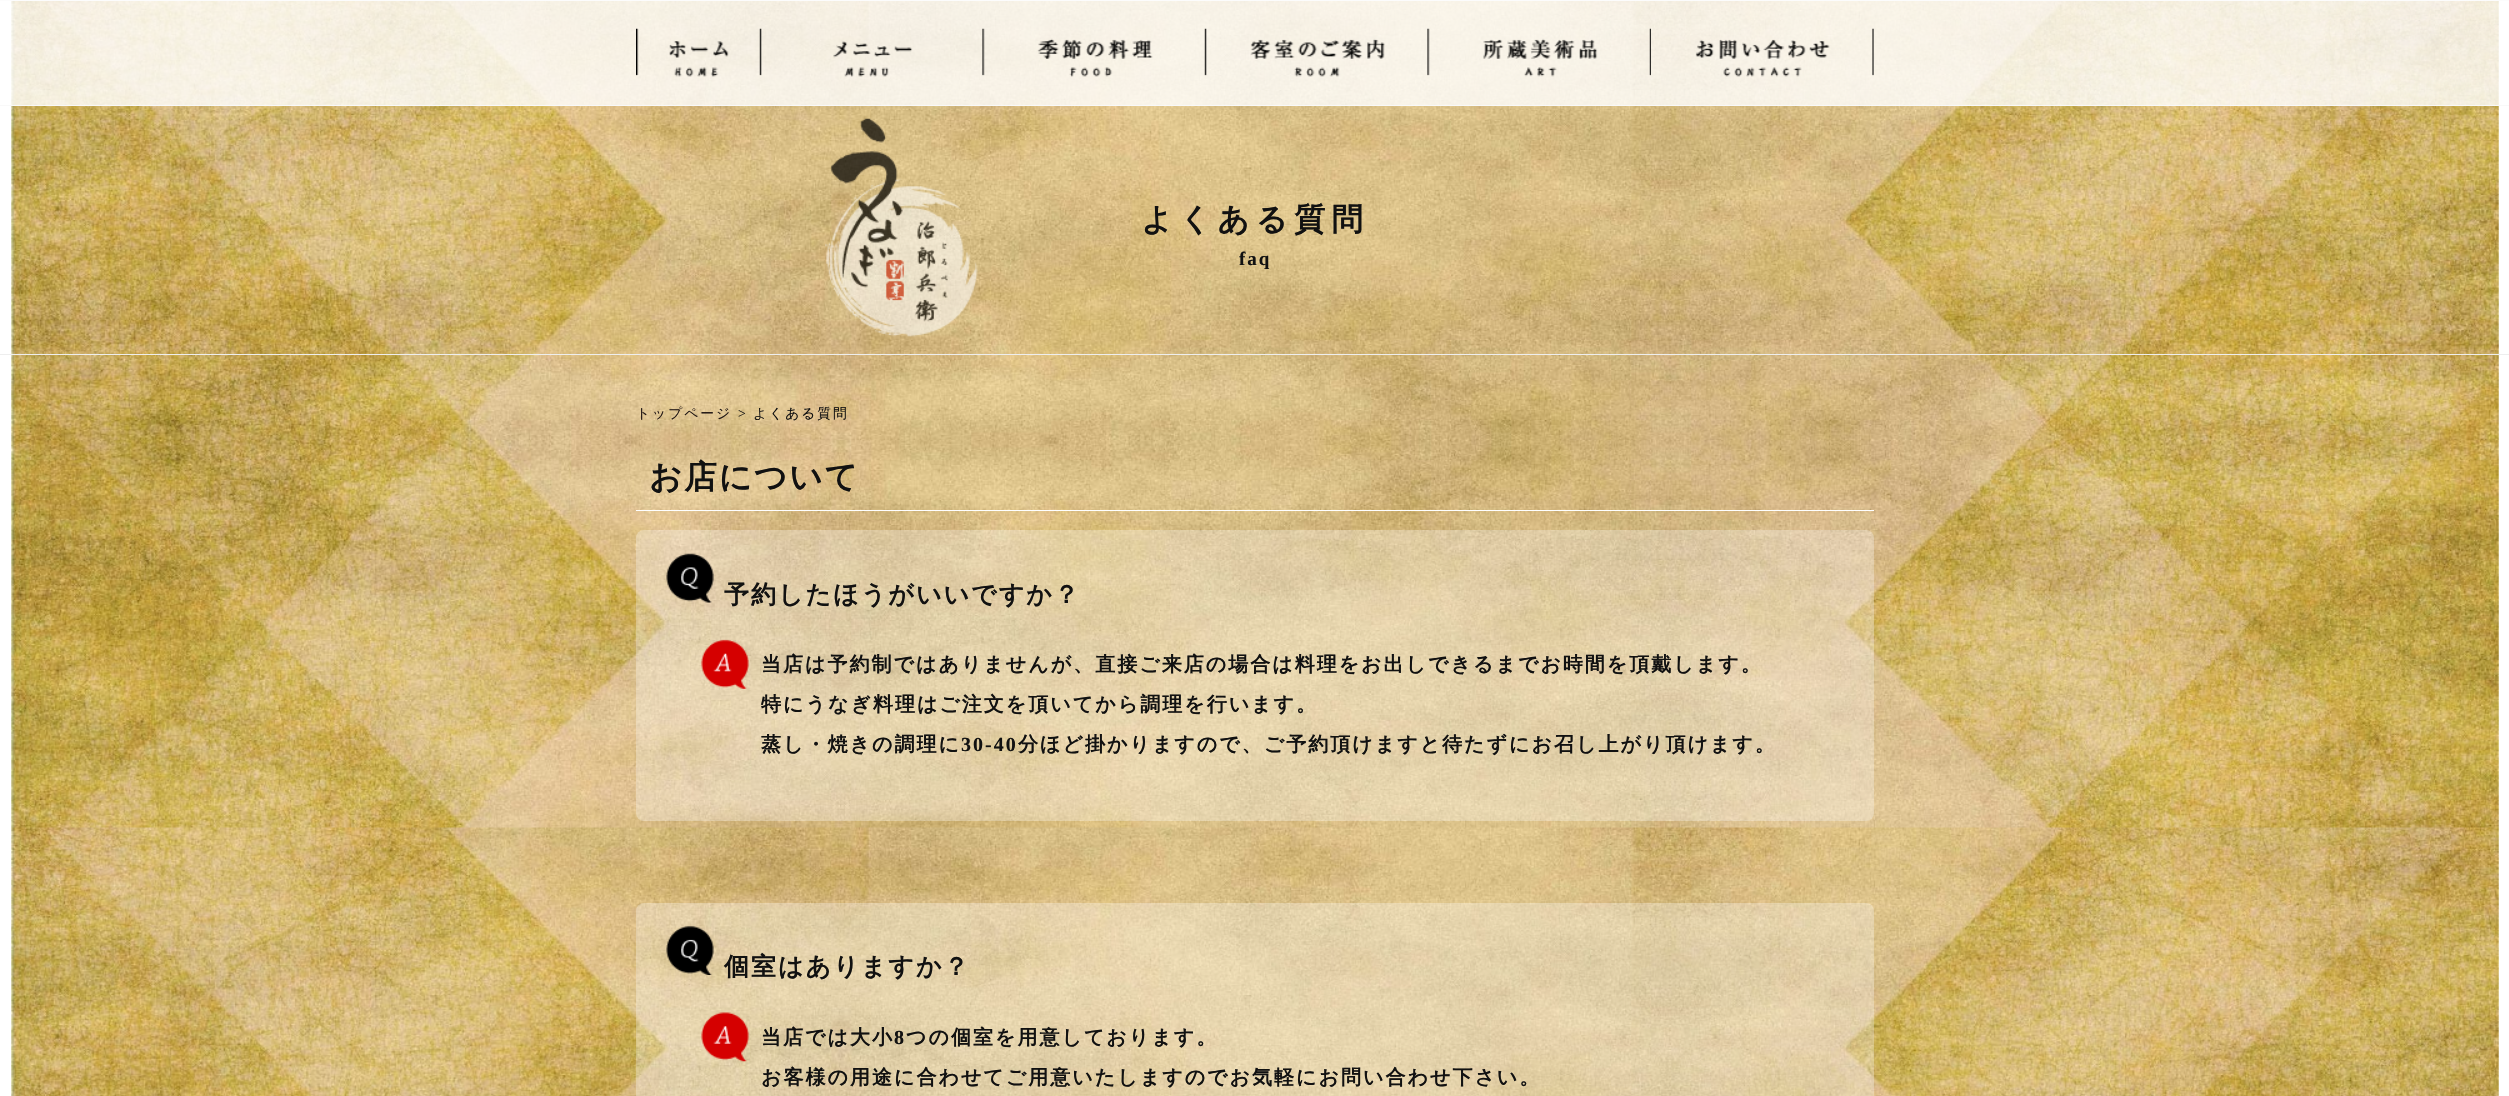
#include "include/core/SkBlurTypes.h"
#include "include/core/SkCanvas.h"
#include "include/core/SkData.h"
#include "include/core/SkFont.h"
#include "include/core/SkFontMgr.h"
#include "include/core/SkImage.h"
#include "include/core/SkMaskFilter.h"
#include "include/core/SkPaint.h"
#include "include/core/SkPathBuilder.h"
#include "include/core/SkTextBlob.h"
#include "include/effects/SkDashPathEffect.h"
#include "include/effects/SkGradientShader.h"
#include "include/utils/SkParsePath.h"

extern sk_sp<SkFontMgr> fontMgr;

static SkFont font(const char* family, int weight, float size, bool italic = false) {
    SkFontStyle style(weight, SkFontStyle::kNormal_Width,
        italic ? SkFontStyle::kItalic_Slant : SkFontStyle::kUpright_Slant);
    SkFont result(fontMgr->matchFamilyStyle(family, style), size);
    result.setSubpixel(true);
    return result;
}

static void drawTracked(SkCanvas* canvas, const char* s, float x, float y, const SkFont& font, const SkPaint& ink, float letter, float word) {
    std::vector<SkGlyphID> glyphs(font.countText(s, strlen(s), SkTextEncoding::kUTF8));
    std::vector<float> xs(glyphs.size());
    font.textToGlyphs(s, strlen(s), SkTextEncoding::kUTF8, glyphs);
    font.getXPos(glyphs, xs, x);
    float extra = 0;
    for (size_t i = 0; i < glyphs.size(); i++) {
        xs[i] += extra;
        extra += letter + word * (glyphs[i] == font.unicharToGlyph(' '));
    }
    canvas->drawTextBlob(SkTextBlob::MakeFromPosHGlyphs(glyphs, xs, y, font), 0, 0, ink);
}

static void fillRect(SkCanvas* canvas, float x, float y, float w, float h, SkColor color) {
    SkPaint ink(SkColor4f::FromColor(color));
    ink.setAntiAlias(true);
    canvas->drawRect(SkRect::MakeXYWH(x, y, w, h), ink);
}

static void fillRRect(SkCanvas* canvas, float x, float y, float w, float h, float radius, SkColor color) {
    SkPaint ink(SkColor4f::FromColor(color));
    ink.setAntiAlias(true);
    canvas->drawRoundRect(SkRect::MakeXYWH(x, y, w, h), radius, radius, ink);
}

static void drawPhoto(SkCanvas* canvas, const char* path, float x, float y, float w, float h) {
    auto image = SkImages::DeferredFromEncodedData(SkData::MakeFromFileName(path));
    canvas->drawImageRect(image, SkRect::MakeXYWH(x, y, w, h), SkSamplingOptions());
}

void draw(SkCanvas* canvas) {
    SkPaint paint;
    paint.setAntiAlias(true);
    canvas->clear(0xFFFFFFFF);
    drawPhoto(canvas, "assets/img1.png", 11, 1, 2488, 1095);
    fillRect(canvas, 0, 0, 2509, 1, 0xFFEEEEEE);
    fillRect(canvas, 0, 0, 2509, 105, 0xCCFFFFFF);
    fillRect(canvas, 0, 105, 2509, 1, 0xFFF9F9F9);
    drawPhoto(canvas, "assets/img2.png", 636, 28, 126, 49);
    drawPhoto(canvas, "assets/img3.png", 833, 28, 152, 49);
    drawPhoto(canvas, "assets/img4.png", 1037, 28, 170, 49);
    drawPhoto(canvas, "assets/img5.png", 1250, 28, 180, 49);
    drawPhoto(canvas, "assets/img6.png", 1483, 28, 168, 49);
    drawPhoto(canvas, "assets/img7.png", 1695, 28, 179, 49);
    fillRect(canvas, 0, 354, 2509, 1, 0xFFEEEEEE);
    drawPhoto(canvas, "assets/img8.png", 825, 118, 153, 219);
    SkFont font1 = font("WenQuanYi Zen Hei", 700, 31.25f);
    paint.setColor(0xFF111111);
    drawTracked(canvas, "よくある質問", 1141, 230, font1, paint, 6.25f, 0);
    SkFont font2 = font("Liberation Serif", 700, 19);
    drawTracked(canvas, "faq", 1239, 265, font2, paint, 2, 0);
    SkFont font3 = font("WenQuanYi Zen Hei", 500, 13.75f);
    paint.setColor(0xFF221815);
    drawTracked(canvas, "トップページ", 636, 418, font3, paint, 2, 0);
    SkFont font4 = font("Liberation Serif", 400, 13.75f);
    paint.setColor(0xFF111111);
    drawTracked(canvas, ">", 738, 418, font4, paint, 2, 0);
    drawTracked(canvas, "よくある質問", 753, 418, font3, paint, 2, 0);
    fillRect(canvas, 636, 510, 1238, 1, 0xFFFFFFFF);
    SkFont font5 = font("WenQuanYi Zen Hei", 700, 32.5f);
    drawTracked(canvas, "お店について", 649, 488, font5, paint, 2, 0);
    fillRRect(canvas, 636, 530, 1238, 291, 8, 0x4DFFFFFF);
    drawPhoto(canvas, "assets/img9.png", 666, 553, 48, 50);
    SkFont font6 = font("WenQuanYi Zen Hei", 700, 25);
    drawTracked(canvas, "予約したほうがいいですか？", 724, 603, font6, paint, 2, 0);
    drawPhoto(canvas, "assets/img10.png", 701, 639, 48, 50);
    SkFont font7 = font("WenQuanYi Zen Hei", 700, 20);
    drawTracked(canvas, "当店は予約制ではありませんが、直接ご来店の場合は料理をお出しできるまでお時間を頂戴します。", 761, 671, font7, paint, 2, 0);
    drawTracked(canvas, "特にうなぎ料理はご注文を頂いてから調理を行います。", 761, 711, font7, paint, 2, 0);
    drawTracked(canvas, "蒸し・焼きの調理に", 761, 751, font7, paint, 2, 0);
    SkFont font8 = font("Liberation Serif", 700, 20);
    drawTracked(canvas, "30-40", 961, 751, font8, paint, 2, 0);
    drawTracked(canvas, "分ほど掛かりますので、ご予約頂けますと待たずにお召し上がり頂けます。", 1018, 751, font7, paint, 2, 0);
    fillRRect(canvas, 636, 903, 1238, 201, 8, 0x4DFFFFFF);
    drawPhoto(canvas, "assets/img11.png", 666, 926, 48, 49);
    drawTracked(canvas, "個室はありますか？", 724, 975, font6, paint, 2, 0);
    drawPhoto(canvas, "assets/img12.png", 701, 1012, 48, 50);
    drawTracked(canvas, "当店では大小", 761, 1044, font7, paint, 2, 0);
    drawTracked(canvas, "8", 894, 1044, font8, paint, 2, 0);
    drawTracked(canvas, "つの個室を用意しております。", 906, 1044, font7, paint, 2, 0);
    drawTracked(canvas, "お客様の用途に合わせてご用意いたしますのでお気軽にお問い合わせ下さい。", 761, 1084, font7, paint, 2, 0);
}
